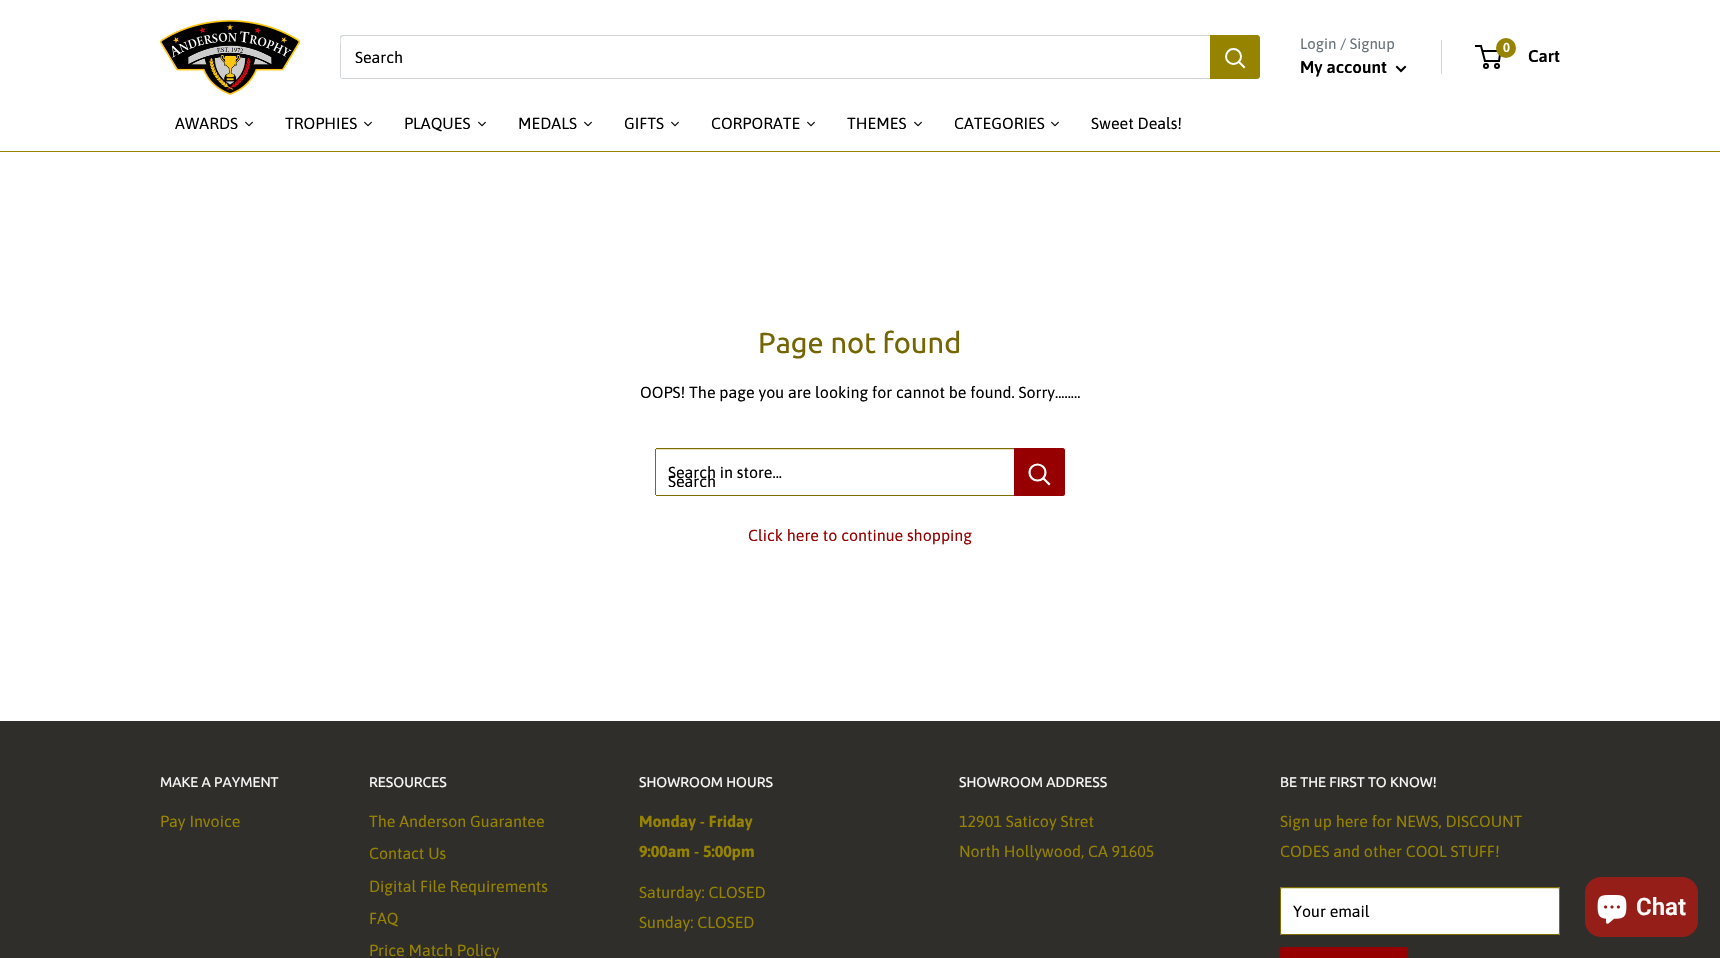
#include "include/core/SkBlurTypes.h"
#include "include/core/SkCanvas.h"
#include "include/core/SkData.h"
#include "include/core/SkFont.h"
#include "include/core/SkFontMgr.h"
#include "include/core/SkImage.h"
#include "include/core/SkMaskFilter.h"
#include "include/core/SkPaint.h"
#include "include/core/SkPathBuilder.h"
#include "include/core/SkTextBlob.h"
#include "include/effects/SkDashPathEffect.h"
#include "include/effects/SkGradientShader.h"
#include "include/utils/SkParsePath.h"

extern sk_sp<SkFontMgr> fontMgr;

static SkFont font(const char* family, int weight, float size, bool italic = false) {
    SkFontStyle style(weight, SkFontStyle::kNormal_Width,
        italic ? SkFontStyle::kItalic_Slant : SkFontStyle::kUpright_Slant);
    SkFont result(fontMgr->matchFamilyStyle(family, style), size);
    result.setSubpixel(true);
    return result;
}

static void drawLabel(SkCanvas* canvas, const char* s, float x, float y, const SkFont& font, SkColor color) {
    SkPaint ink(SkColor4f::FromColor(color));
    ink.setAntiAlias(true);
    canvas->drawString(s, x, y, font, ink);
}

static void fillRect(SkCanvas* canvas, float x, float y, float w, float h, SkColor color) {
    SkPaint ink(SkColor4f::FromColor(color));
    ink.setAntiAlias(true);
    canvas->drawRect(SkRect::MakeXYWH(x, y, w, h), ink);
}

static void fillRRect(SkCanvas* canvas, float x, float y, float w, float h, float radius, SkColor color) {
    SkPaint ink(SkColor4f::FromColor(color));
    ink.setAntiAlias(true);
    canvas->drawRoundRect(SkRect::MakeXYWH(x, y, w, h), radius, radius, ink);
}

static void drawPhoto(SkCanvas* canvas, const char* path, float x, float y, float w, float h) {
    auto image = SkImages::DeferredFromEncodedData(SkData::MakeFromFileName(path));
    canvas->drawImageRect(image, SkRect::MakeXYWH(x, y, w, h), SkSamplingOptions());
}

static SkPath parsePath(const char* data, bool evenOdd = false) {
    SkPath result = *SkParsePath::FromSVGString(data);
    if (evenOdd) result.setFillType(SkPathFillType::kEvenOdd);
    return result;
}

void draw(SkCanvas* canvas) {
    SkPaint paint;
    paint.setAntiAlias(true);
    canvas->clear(0xFFFFFFFF);
    drawPhoto(canvas, "assets/img1.png", 160, 20, 140, 75);
    paint.setColor(0xFFD1D5D7);
    canvas->drawPath(parsePath("M341 78C341 79 342 79 343 79H1257C1259 79 1260 78 1260 76V38C1260 37 1260 36 1259 36V69C1259 71 1261 78 1256 78Z"), paint);
    canvas->drawPath(parsePath("M344 36H1259C1259 35 1258 35 1257 35H343C341 35 340 36 340 38V76C340 77 340 78 341 78V45C341 43 339 36 344 36Z"), paint);
    SkFont font1 = font("Asap", 400, 16);
    drawLabel(canvas, "Search", 355, 63, font1, 0xFF000000);
    paint.setColor(0xFF968300);
    canvas->drawPath(parsePath("M1210 35H1257C1258.5 35 1260 36.5 1260 38V76C1260 77.5 1258.5 79 1257 79H1210Z"), paint);
    paint.setStroke(true);
    paint.setStrokeWidth(2);
    paint.setStrokeCap(SkPaint::kSquare_Cap);
    paint.setColor(0xFFFFFFFF);
    canvas->drawPath(parsePath("M1244 67L1239 62"), paint);
    paint.setStrokeCap(SkPaint::kButt_Cap);
    canvas->drawCircle(1233.5f, 56.5f, 7.5f, paint);
    SkFont font2 = font("Asap", 400, 15);
    drawLabel(canvas, "Login / Signup", 1300, 49, font2, 0xFF677279);
    fillRect(canvas, 1441, 40, 1, 34, 0xFFD1D5D7);
    SkFont font3 = font("Asap", 600, 17);
    drawLabel(canvas, "My account", 1300, 73, font3, 0xFF000000);
    paint.setStrokeCap(SkPaint::kSquare_Cap);
    paint.setColor(0xFF000000);
    canvas->drawPath(parsePath("M1405 67L1401 71L1397 67"), paint);
    paint.setStrokeCap(SkPaint::kButt_Cap);
    canvas->drawCircle(1486, 66, 2, paint);
    canvas->drawCircle(1497, 66, 2, paint);
    canvas->drawPath(parsePath("M1482.5 51H1500.5L1499 61H1485L1481 46H1475"), paint);
    paint.setStroke(false);
    paint.setColor(0xFF968300);
    canvas->drawCircle(1506, 48, 10, paint);
    SkFont font4 = font("Asap", 600, 13);
    drawLabel(canvas, "0", 1503, 52, font4, 0xFFFAFAFA);
    drawLabel(canvas, "Cart", 1528, 62, font3, 0xFF000000);
    fillRect(canvas, 0, 151, 1720, 1, 0xFF968300);
    drawLabel(canvas, "AWARDS", 175, 129, font1, 0xFF000000);
    drawPhoto(canvas, "assets/img2.png", 245, 121, 8, 6);
    drawLabel(canvas, "TROPHIES", 285, 129, font1, 0xFF000000);
    drawPhoto(canvas, "assets/img2.png", 364, 121, 8, 6);
    drawLabel(canvas, "PLAQUES", 404, 129, font1, 0xFF000000);
    drawPhoto(canvas, "assets/img2.png", 478, 121, 8, 6);
    drawLabel(canvas, "MEDALS", 518, 129, font1, 0xFF000000);
    drawPhoto(canvas, "assets/img2.png", 584, 121, 8, 6);
    drawLabel(canvas, "GIFTS", 624, 129, font1, 0xFF000000);
    drawPhoto(canvas, "assets/img2.png", 671, 121, 8, 6);
    drawLabel(canvas, "CORPORATE", 711, 129, font1, 0xFF000000);
    drawPhoto(canvas, "assets/img2.png", 807, 121, 8, 6);
    drawLabel(canvas, "THEMES", 847, 129, font1, 0xFF000000);
    drawPhoto(canvas, "assets/img2.png", 914, 121, 8, 6);
    drawLabel(canvas, "CATEGORIES", 954, 129, font1, 0xFF000000);
    drawPhoto(canvas, "assets/img2.png", 1051, 121, 8, 6);
    drawLabel(canvas, "Sweet Deals!", 1091, 129, font1, 0xFF000000);
    SkFont font5 = font("Ubuntu", 400, 29);
    drawLabel(canvas, "Page not found", 758, 353, font5, 0xFF746603);
    drawLabel(canvas, "OOPS! The page you are looking for cannot be found. Sorry........", 640, 398, font1, 0xFF000000);
    drawLabel(canvas, "Search in store...", 668, 478, font1, 0xFF000000);
    paint.setColor(0xFFE5E0BF);
    canvas->drawPath(parsePath("M657 450H1014V449H657C656 449 656 450 656 451C656 450 656 450 657 450Z"), paint);
    fillRect(canvas, 656, 448, 358, 1, 0xFF7D6D00);
    fillRect(canvas, 656, 495, 358, 1, 0xFF7D6D00);
    fillRect(canvas, 655, 449, 1, 46, 0xFF7D6D00);
    drawLabel(canvas, "Search", 668, 487, font1, 0xFF000000);
    paint.setColor(0xFF960000);
    canvas->drawPath(parsePath("M1014 448H1063C1064 448 1065 449 1065 450V494C1065 495 1064 496 1063 496H1014Z"), paint);
    paint.setStroke(true);
    paint.setStrokeWidth(2.2f);
    paint.setStrokeCap(SkPaint::kSquare_Cap);
    paint.setColor(0xFFFFFFFF);
    canvas->drawPath(parsePath("M1049 484L1043.5 478.5"), paint);
    paint.setStrokeCap(SkPaint::kButt_Cap);
    canvas->drawCircle(1037.5f, 472.5f, 8, paint);
    drawLabel(canvas, "Click here to continue shopping", 748, 541, font1, 0xFF960000);
    fillRect(canvas, 0, 721, 1720, 237, 0xFF2F2E2A);
    SkFont font6 = font("Ubuntu", 400, 14);
    drawLabel(canvas, "MAKE A PAYMENT", 160, 787, font6, 0xFFFAFAFA);
    drawLabel(canvas, "Pay Invoice", 160, 827, font1, 0xFF968300);
    drawLabel(canvas, "RESOURCES", 369, 787, font6, 0xFFFAFAFA);
    drawLabel(canvas, "The Anderson Guarantee", 369, 827, font1, 0xFF968300);
    drawLabel(canvas, "Contact Us", 369, 859, font1, 0xFF968300);
    drawLabel(canvas, "Digital File Requirements", 369, 892, font1, 0xFF968300);
    drawLabel(canvas, "FAQ", 369, 924, font1, 0xFF968300);
    drawLabel(canvas, "Price Match Policy", 369, 956, font1, 0xFF968300);
    drawLabel(canvas, "SHOWROOM HOURS", 639, 787, font6, 0xFFFAFAFA);
    SkFont font7 = font("Asap", 700, 16);
    drawLabel(canvas, "Monday - Friday", 639, 827, font7, 0xFF968300);
    drawLabel(canvas, "9:00am - 5:00pm", 639, 857, font7, 0xFF968300);
    drawLabel(canvas, "Saturday: CLOSED", 639, 898, font1, 0xFF968300);
    drawLabel(canvas, "Sunday: CLOSED", 639, 928, font1, 0xFF968300);
    drawLabel(canvas, "SHOWROOM ADDRESS", 959, 787, font6, 0xFFFAFAFA);
    drawLabel(canvas, "12901 Saticoy Stret", 959, 827, font1, 0xFF968300);
    drawLabel(canvas, "North Hollywood, CA 91605", 959, 857, font1, 0xFF968300);
    drawLabel(canvas, "BE THE FIRST TO KNOW!", 1280, 787, font6, 0xFFFAFAFA);
    drawLabel(canvas, "Sign up here for NEWS, DISCOUNT", 1280, 827, font1, 0xFF968300);
    drawLabel(canvas, "CODES and other COOL STUFF!", 1280, 857, font1, 0xFF968300);
    fillRRect(canvas, 1280, 887, 280, 48, 2, 0xFFFFFFFF);
    paint.setStroke(false);
    paint.setColor(0xFFE5E0BF);
    canvas->drawPath(parsePath("M1282 889H1558C1559 889 1559 889 1559 890C1559 889 1559 888 1558 888H1282H1281V890C1281 889 1281 889 1282 889Z"), paint);
    paint.setStroke(true);
    paint.setStrokeWidth(1);
    paint.setColor(0xFF7D6D00);
    canvas->drawRoundRect(SkRect::MakeXYWH(1280.5f, 887.5f, 279, 47), 1.5f, 1.5f, paint);
    drawLabel(canvas, "Your email", 1293, 917, font1, 0xFF000000);
    fillRRect(canvas, 1280, 947, 128, 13, 2, 0xFF960000);
    fillRRect(canvas, 1585, 877, 113, 60, 16, 0xFF951F18);
    drawPhoto(canvas, "assets/img3.png", 1597, 895, 30, 29);
    SkFont font8 = font("Roboto", 600, 24);
    drawLabel(canvas, "Chat", 1636, 915, font8, 0xFFFAFAFA);
}
